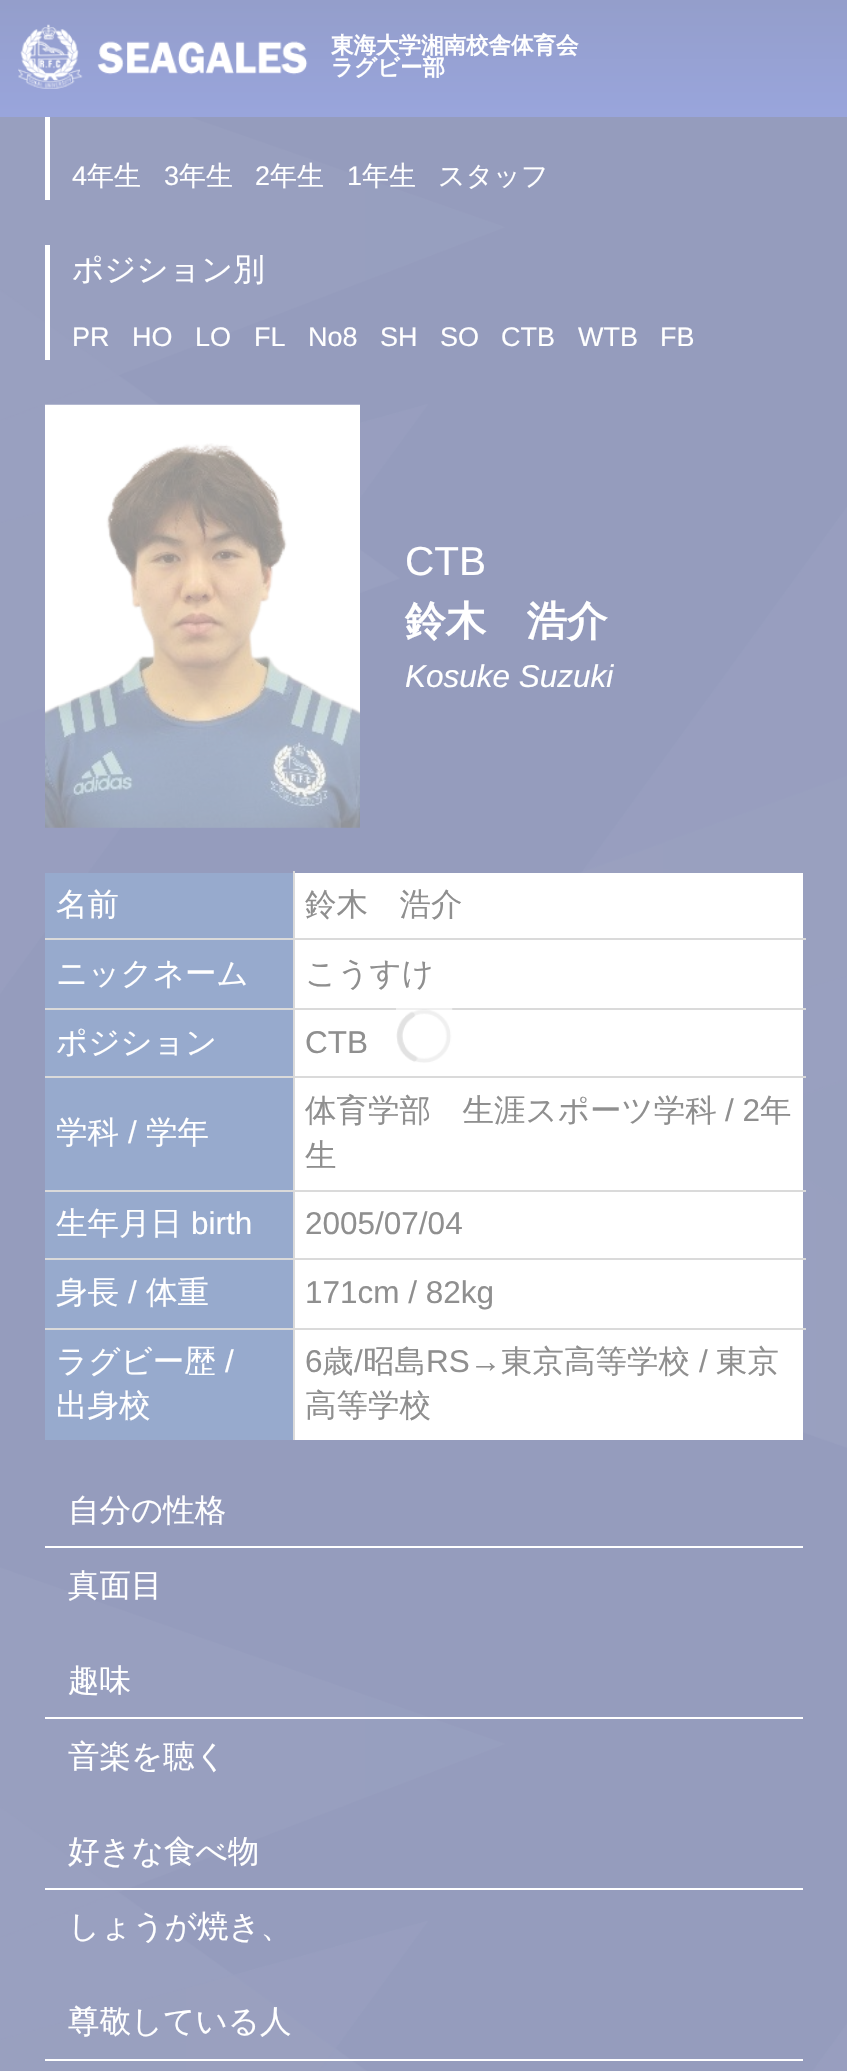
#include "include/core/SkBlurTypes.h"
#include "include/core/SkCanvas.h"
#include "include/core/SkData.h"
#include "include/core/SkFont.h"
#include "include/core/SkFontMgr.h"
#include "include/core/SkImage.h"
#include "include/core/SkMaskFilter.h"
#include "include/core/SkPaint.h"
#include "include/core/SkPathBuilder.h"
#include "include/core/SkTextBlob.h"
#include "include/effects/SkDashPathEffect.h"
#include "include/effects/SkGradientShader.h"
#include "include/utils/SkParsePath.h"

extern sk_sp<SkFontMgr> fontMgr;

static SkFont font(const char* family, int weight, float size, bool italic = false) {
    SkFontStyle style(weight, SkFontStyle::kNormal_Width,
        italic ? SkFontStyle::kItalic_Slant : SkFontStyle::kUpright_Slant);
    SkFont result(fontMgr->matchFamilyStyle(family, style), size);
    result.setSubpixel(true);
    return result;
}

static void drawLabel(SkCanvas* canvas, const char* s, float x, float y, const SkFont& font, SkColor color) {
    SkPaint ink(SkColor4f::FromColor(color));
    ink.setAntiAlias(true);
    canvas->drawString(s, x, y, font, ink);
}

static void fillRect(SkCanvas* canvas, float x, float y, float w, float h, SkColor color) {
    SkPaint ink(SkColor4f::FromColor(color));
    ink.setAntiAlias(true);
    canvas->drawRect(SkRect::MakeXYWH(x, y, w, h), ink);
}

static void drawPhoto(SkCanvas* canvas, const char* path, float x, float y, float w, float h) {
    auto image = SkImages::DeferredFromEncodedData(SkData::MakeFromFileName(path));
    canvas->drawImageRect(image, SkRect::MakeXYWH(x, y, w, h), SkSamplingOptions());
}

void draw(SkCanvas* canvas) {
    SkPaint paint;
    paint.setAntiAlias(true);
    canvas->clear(0xFF959CBD);
    drawPhoto(canvas, "assets/img1.png", 0, 117, 847, 1954);
    {
        const SkColor colors[] = {0xFF949ECB, 0xFF99A5DC};
        const float stops[] = {0.01f, 1};
        const SkPoint ends[] = {{424, 0}, {424, 117}};
        paint.setShader(SkGradientShader::MakeLinear(ends, colors, stops, 2, SkTileMode::kClamp));
        paint.setAlpha(255);
    }
    canvas->drawRect(SkRect::MakeXYWH(0, 0, 847, 117), paint);
    drawPhoto(canvas, "assets/img2.png", 18, 24, 290, 65);
    SkFont font1 = font("WenQuanYi Zen Hei", 700, 22.5f);
    drawLabel(canvas, "東海大学湘南校舎体育会", 331, 53, font1, 0xFFFFFFFF);
    drawLabel(canvas, "ラグビー部", 331, 75, font1, 0xFFFFFFFF);
    fillRect(canvas, 45, 117, 5, 83, 0xFFFFFFFF);
    SkFont font2 = font("Liberation Sans", 400, 27);
    drawLabel(canvas, "4", 72, 185, font2, 0xFFFFFFFF);
    SkFont font3 = font("WenQuanYi Zen Hei", 500, 27);
    drawLabel(canvas, "年生", 87, 185, font3, 0xFFFFFFFF);
    drawLabel(canvas, "3", 164, 185, font2, 0xFFFFFFFF);
    drawLabel(canvas, "年生", 179, 185, font3, 0xFFFFFFFF);
    drawLabel(canvas, "2", 255, 185, font2, 0xFFFFFFFF);
    drawLabel(canvas, "年生", 270, 185, font3, 0xFFFFFFFF);
    drawLabel(canvas, "1", 347, 185, font2, 0xFFFFFFFF);
    drawLabel(canvas, "年生", 362, 185, font3, 0xFFFFFFFF);
    drawLabel(canvas, "スタッフ", 438, 185, font3, 0xFFFFFFFF);
    fillRect(canvas, 45, 245, 5, 115, 0xFFFFFFFF);
    SkFont font4 = font("WenQuanYi Zen Hei", 500, 31.5f);
    drawLabel(canvas, "ポジション別", 72, 280, font4, 0xFFFFFFFF);
    drawLabel(canvas, "PR", 72, 346, font2, 0xFFFFFFFF);
    drawLabel(canvas, "HO", 132, 346, font2, 0xFFFFFFFF);
    drawLabel(canvas, "LO", 195, 346, font2, 0xFFFFFFFF);
    drawLabel(canvas, "FL", 254, 346, font2, 0xFFFFFFFF);
    drawLabel(canvas, "No8", 308, 346, font2, 0xFFFFFFFF);
    drawLabel(canvas, "SH", 380, 346, font2, 0xFFFFFFFF);
    drawLabel(canvas, "SO", 440, 346, font2, 0xFFFFFFFF);
    drawLabel(canvas, "CTB", 501, 346, font2, 0xFFFFFFFF);
    drawLabel(canvas, "WTB", 578, 346, font2, 0xFFFFFFFF);
    drawLabel(canvas, "FB", 660, 346, font2, 0xFFFFFFFF);
    drawPhoto(canvas, "assets/img3.png", 45, 404, 315, 424);
    SkFont font5 = font("Liberation Sans", 400, 40.5f);
    drawLabel(canvas, "CTB", 405, 575, font5, 0xFFFFFFFF);
    SkFont font6 = font("WenQuanYi Zen Hei", 700, 40.5f);
    drawLabel(canvas, "鈴木　浩介", 405, 635, font6, 0xFFFFFFFF);
    SkFont font7 = font("Liberation Sans", 400, 31.5f, true);
    drawLabel(canvas, "Kosuke Suzuki", 405, 687, font7, 0xFFFFFFFF);
    fillRect(canvas, 295, 873, 508, 567, 0xFFFFFFFF);
    fillRect(canvas, 45, 873, 248, 135, 0xFF97AACD);
    fillRect(canvas, 45, 938, 761, 2, 0xFFDADADA);
    drawLabel(canvas, "名前", 56, 915, font4, 0xFFFFFFFF);
    drawLabel(canvas, "鈴木　浩介", 305, 915, font4, 0xFF8F8F8F);
    fillRect(canvas, 45, 1008, 761, 2, 0xFFDADADA);
    drawLabel(canvas, "ニックネーム", 56, 984, font4, 0xFFFFFFFF);
    drawLabel(canvas, "こうすけ", 305, 984, font4, 0xFF8F8F8F);
    fillRect(canvas, 45, 1076, 761, 2, 0xFFDADADA);
    fillRect(canvas, 45, 1010, 248, 66, 0xFF97AACD);
    drawLabel(canvas, "ポジション", 56, 1053, font4, 0xFFFFFFFF);
    SkFont font8 = font("Liberation Sans", 400, 31.5f);
    drawLabel(canvas, "CTB", 305, 1053, font8, 0xFF8F8F8F);
    fillRect(canvas, 45, 1190, 761, 2, 0xFFDADADA);
    fillRect(canvas, 45, 1078, 248, 112, 0xFF97AACD);
    drawLabel(canvas, "学科", 56, 1143, font4, 0xFFFFFFFF);
    drawLabel(canvas, "/", 128, 1143, font8, 0xFFFFFFFF);
    drawLabel(canvas, "学年", 146, 1143, font4, 0xFFFFFFFF);
    drawLabel(canvas, "体育学部　生涯スポーツ学科", 305, 1121, font4, 0xFF8F8F8F);
    drawLabel(canvas, "/ 2", 725, 1121, font8, 0xFF8F8F8F);
    drawLabel(canvas, "年", 760, 1121, font4, 0xFF8F8F8F);
    drawLabel(canvas, "生", 305, 1166, font4, 0xFF8F8F8F);
    fillRect(canvas, 45, 1258, 761, 2, 0xFFDADADA);
    fillRect(canvas, 45, 1192, 248, 66, 0xFF97AACD);
    drawLabel(canvas, "生年月日", 56, 1234, font4, 0xFFFFFFFF);
    drawLabel(canvas, "birth", 191, 1234, font8, 0xFFFFFFFF);
    drawLabel(canvas, "2005/07/04", 305, 1234, font8, 0xFF8F8F8F);
    fillRect(canvas, 45, 1328, 761, 2, 0xFFDADADA);
    fillRect(canvas, 45, 1260, 248, 68, 0xFF97AACD);
    drawLabel(canvas, "身長", 56, 1303, font4, 0xFFFFFFFF);
    drawLabel(canvas, "/", 128, 1303, font8, 0xFFFFFFFF);
    drawLabel(canvas, "体重", 146, 1303, font4, 0xFFFFFFFF);
    drawLabel(canvas, "171cm / 82kg", 305, 1303, font8, 0xFF8F8F8F);
    fillRect(canvas, 45, 1330, 248, 110, 0xFF97AACD);
    fillRect(canvas, 293, 871, 2, 569, 0xFFDADADA);
    drawLabel(canvas, "ラグビー歴", 56, 1372, font4, 0xFFFFFFFF);
    drawLabel(canvas, "/", 225, 1372, font8, 0xFFFFFFFF);
    drawLabel(canvas, "出身校", 56, 1416, font4, 0xFFFFFFFF);
    drawLabel(canvas, "6", 305, 1372, font8, 0xFF8F8F8F);
    drawLabel(canvas, "歳", 322, 1372, font4, 0xFF8F8F8F);
    drawLabel(canvas, "/", 354, 1372, font8, 0xFF8F8F8F);
    drawLabel(canvas, "昭島", 363, 1372, font4, 0xFF8F8F8F);
    drawLabel(canvas, "RS→", 426, 1372, font8, 0xFF8F8F8F);
    drawLabel(canvas, "東京高等学校", 501, 1372, font4, 0xFF8F8F8F);
    drawLabel(canvas, "/", 699, 1372, font8, 0xFF8F8F8F);
    drawLabel(canvas, "東京", 716, 1372, font4, 0xFF8F8F8F);
    drawLabel(canvas, "高等学校", 305, 1416, font4, 0xFF8F8F8F);
    fillRect(canvas, 45, 1546, 758, 2, 0xFFFFFFFF);
    drawLabel(canvas, "自分の性格", 68, 1521, font4, 0xFFFFFFFF);
    drawLabel(canvas, "真面目", 68, 1596, font4, 0xFFFFFFFF);
    fillRect(canvas, 45, 1717, 758, 2, 0xFFFFFFFF);
    drawLabel(canvas, "趣味", 68, 1691, font4, 0xFFFFFFFF);
    drawLabel(canvas, "音楽を聴く", 68, 1767, font4, 0xFFFFFFFF);
    fillRect(canvas, 45, 1888, 758, 2, 0xFFFFFFFF);
    drawLabel(canvas, "好きな食べ物", 68, 1862, font4, 0xFFFFFFFF);
    drawLabel(canvas, "しょうが焼き、", 68, 1937, font4, 0xFFFFFFFF);
    fillRect(canvas, 45, 2059, 758, 2, 0xFFFFFFFF);
    drawLabel(canvas, "尊敬している人", 68, 2032, font4, 0xFFFFFFFF);
    drawPhoto(canvas, "assets/img4.png", 396, 1008, 57, 55);
}
